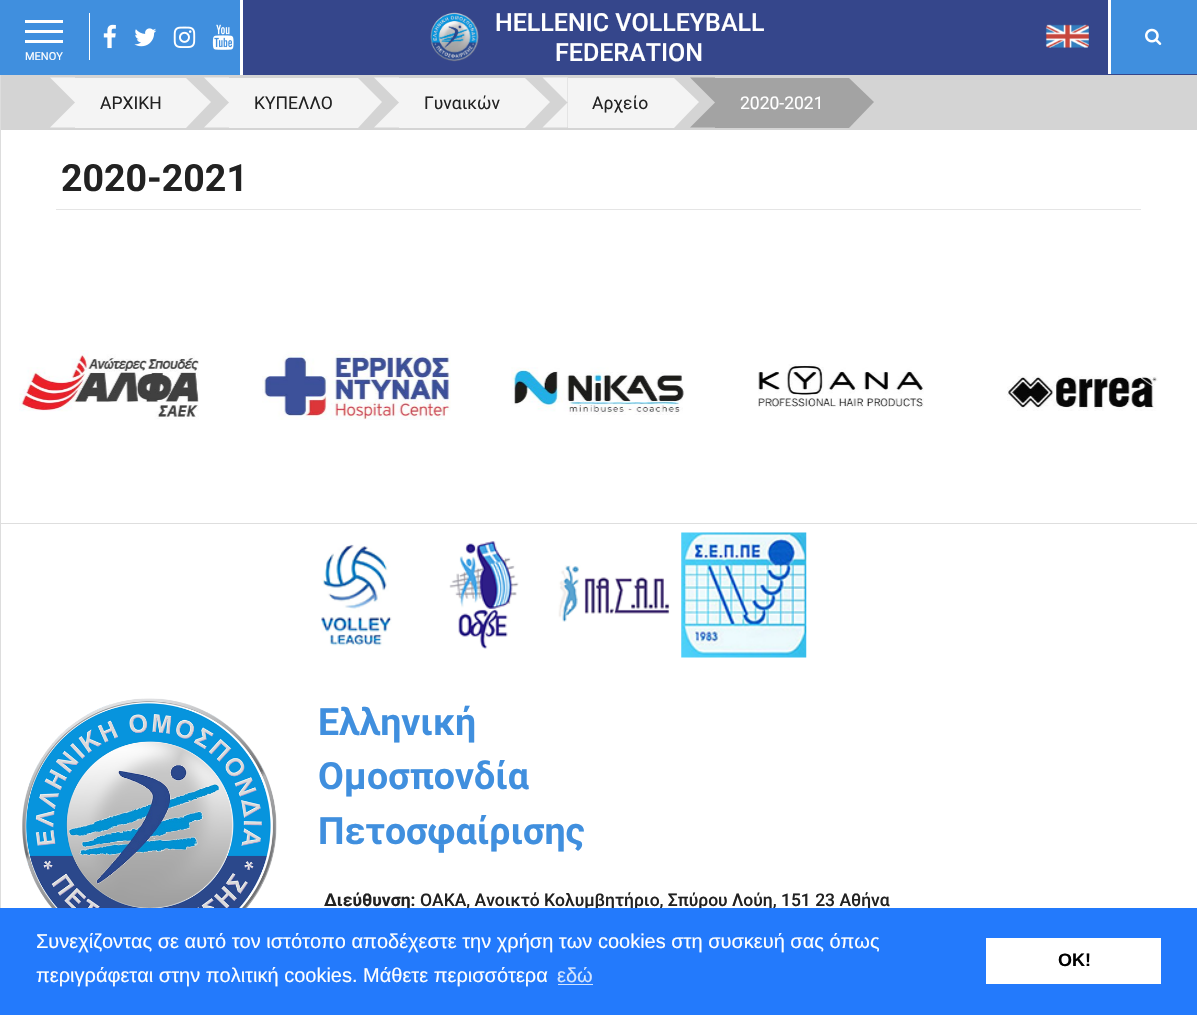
#include "include/core/SkBlurTypes.h"
#include "include/core/SkCanvas.h"
#include "include/core/SkData.h"
#include "include/core/SkFont.h"
#include "include/core/SkFontMgr.h"
#include "include/core/SkImage.h"
#include "include/core/SkMaskFilter.h"
#include "include/core/SkPaint.h"
#include "include/core/SkPathBuilder.h"
#include "include/core/SkTextBlob.h"
#include "include/effects/SkDashPathEffect.h"
#include "include/effects/SkGradientShader.h"
#include "include/utils/SkParsePath.h"

extern sk_sp<SkFontMgr> fontMgr;

static SkFont font(const char* family, int weight, float size, bool italic = false) {
    SkFontStyle style(weight, SkFontStyle::kNormal_Width,
        italic ? SkFontStyle::kItalic_Slant : SkFontStyle::kUpright_Slant);
    SkFont result(fontMgr->matchFamilyStyle(family, style), size);
    result.setSubpixel(true);
    return result;
}

static void drawLabel(SkCanvas* canvas, const char* s, float x, float y, const SkFont& font, SkColor color) {
    SkPaint ink(SkColor4f::FromColor(color));
    ink.setAntiAlias(true);
    canvas->drawString(s, x, y, font, ink);
}

static void fillRect(SkCanvas* canvas, float x, float y, float w, float h, SkColor color) {
    SkPaint ink(SkColor4f::FromColor(color));
    ink.setAntiAlias(true);
    canvas->drawRect(SkRect::MakeXYWH(x, y, w, h), ink);
}

static void drawPhoto(SkCanvas* canvas, const char* path, float x, float y, float w, float h) {
    auto image = SkImages::DeferredFromEncodedData(SkData::MakeFromFileName(path));
    canvas->drawImageRect(image, SkRect::MakeXYWH(x, y, w, h), SkSamplingOptions());
}

static SkPath parsePath(const char* data, bool evenOdd = false) {
    SkPath result = *SkParsePath::FromSVGString(data);
    if (evenOdd) result.setFillType(SkPathFillType::kEvenOdd);
    return result;
}

void draw(SkCanvas* canvas) {
    SkPaint paint;
    paint.setAntiAlias(true);
    canvas->clear(0xFFFFFFFF);
    fillRect(canvas, 243, 0, 954, 75, 0xFF35468B);
    fillRect(canvas, 0, 0, 240, 75, 0xFF408FDE);
    drawPhoto(canvas, "assets/img1.png", 103, 24, 13, 25);
    drawPhoto(canvas, "assets/img2.png", 134, 28, 23, 19);
    drawPhoto(canvas, "assets/img3.png", 173, 26, 23, 22);
    drawPhoto(canvas, "assets/img4.png", 212, 24, 22, 26);
    fillRect(canvas, 89, 13, 1, 47, 0xFFFFFFFF);
    fillRect(canvas, 25, 20, 38, 3, 0xFFFFFFFF);
    fillRect(canvas, 25, 30, 38, 3, 0xFFFFFFFF);
    fillRect(canvas, 25, 40, 38, 3, 0xFFFFFFFF);
    SkFont font1 = font("Roboto", 400, 11);
    drawLabel(canvas, "ΜΕΝΟΥ", 25, 60, font1, 0xFFFFFFFF);
    drawPhoto(canvas, "assets/img5.png", 430, 12, 49, 50);
    SkFont font2 = font("Roboto", 500, 25);
    drawLabel(canvas, "HELLENIC VOLLEYBALL", 495, 31, font2, 0xFFFFFFFF);
    drawLabel(canvas, "FEDERATION", 555, 61, font2, 0xFFFFFFFF);
    drawPhoto(canvas, "assets/img6.png", 1045, 24, 44, 24);
    fillRect(canvas, 1111, 0, 86, 74, 0xFF408FDE);
    fillRect(canvas, 1108, 0, 3, 74, 0xFFFFFFFF);
    drawPhoto(canvas, "assets/img7.png", 1145, 28, 17, 17);
    fillRect(canvas, 0, 523, 1197, 1, 0xFFDEDEDE);
    fillRect(canvas, 0, 75, 1, 833, 0xFFDDDDDD);
    fillRect(canvas, 1, 75, 1196, 55, 0xFFD4D4D4);
    fillRect(canvas, 75, 78, 111, 50, 0xFFF4F4F4);
    paint.setColor(0xFFF4F4F4);
    canvas->drawPath(parsePath("M50 77.5H75V102.5Z"), paint);
    canvas->drawPath(parsePath("M75 127.5H50L75 102.5Z"), paint);
    SkFont font3 = font("Roboto", 400, 17.5f);
    drawLabel(canvas, "ΑΡΧΙΚΗ", 100, 109, font3, 0xFF222222);
    canvas->drawPath(parsePath("M186 128V78L211 102Z"), paint);
    fillRect(canvas, 229, 78, 129, 50, 0xFFF4F4F4);
    canvas->drawPath(parsePath("M204 77.5H229V102.5Z"), paint);
    canvas->drawPath(parsePath("M229 127.5H204L229 102.5Z"), paint);
    drawLabel(canvas, "ΚΥΠΕΛΛΟ", 254, 109, font3, 0xFF222222);
    canvas->drawPath(parsePath("M358 128V78L382 102Z"), paint);
    fillRect(canvas, 399, 78, 126, 50, 0xFFF4F4F4);
    canvas->drawPath(parsePath("M374 77.5H399V102.5Z"), paint);
    canvas->drawPath(parsePath("M399 127.5H374L399 102.5Z"), paint);
    drawLabel(canvas, "Γυναικών", 424, 109, font3, 0xFF222222);
    canvas->drawPath(parsePath("M525 128V78L550 102Z"), paint);
    fillRect(canvas, 568, 78, 106, 50, 0xFFF4F4F4);
    canvas->drawPath(parsePath("M542.5 77.5H567.5V102.5Z"), paint);
    canvas->drawPath(parsePath("M567.5 127.5H542.5L567.5 102.5Z"), paint);
    drawLabel(canvas, "Αρχείο", 592, 109, font3, 0xFF222222);
    canvas->drawPath(parsePath("M674 128V78L699 102Z"), paint);
    fillRect(canvas, 715, 78, 134, 50, 0xFFA3A3A3);
    paint.setColor(0xFFA3A3A3);
    canvas->drawPath(parsePath("M690 77.5H715V102.5Z"), paint);
    canvas->drawPath(parsePath("M715 127.5H690L715 102.5Z"), paint);
    drawLabel(canvas, "2020-2021", 740, 109, font3, 0xFFFFFFFF);
    canvas->drawPath(parsePath("M849 128V78L874 102Z"), paint);
    fillRect(canvas, 56, 209, 1085, 1, 0xFFE5E5E5);
    SkFont font4 = font("Roboto", 700, 37.5f);
    drawLabel(canvas, "2020-2021", 61, 191, font4, 0xFF222222);
    drawPhoto(canvas, "assets/img8.png", 19, 350, 180, 70);
    drawPhoto(canvas, "assets/img9.png", 262, 350, 189, 70);
    drawPhoto(canvas, "assets/img10.png", 511, 367, 174, 48);
    drawPhoto(canvas, "assets/img11.png", 758, 364, 166, 43);
    drawPhoto(canvas, "assets/img12.png", 1007, 376, 151, 35);
    drawPhoto(canvas, "assets/img13.png", 321, 544, 71, 102);
    drawPhoto(canvas, "assets/img14.png", 449, 541, 70, 108);
    drawPhoto(canvas, "assets/img15.png", 558, 565, 112, 57);
    drawPhoto(canvas, "assets/img16.png", 681, 532, 126, 126);
    drawPhoto(canvas, "assets/img17.png", 22, 698, 255, 210);
    drawLabel(canvas, "Ελληνική", 318, 735, font4, 0xFF408FDE);
    drawLabel(canvas, "Ομοσπονδία", 318, 789, font4, 0xFF408FDE);
    drawLabel(canvas, "Πετοσφαίρισης", 318, 844, font4, 0xFF408FDE);
    SkFont font5 = font("Roboto", 700, 17.5f);
    drawLabel(canvas, "Διεύθυνση:", 324, 906, font5, 0xFF222222);
    SkFont font6 = font("Roboto", 500, 17.5f);
    drawLabel(canvas, "ΟΑΚΑ, Ανοικτό Κολυμβητήριο, Σπύρου Λούη, 151 23 Αθήνα", 420, 906, font6, 0xFF222222);
    fillRect(canvas, 0, 908, 1197, 107, 0xFF237AFC);
    SkFont font7 = font("Liberation Sans", 400, 20);
    drawLabel(canvas, "Συνεχίζοντας σε αυτό τον ιστότοπο αποδέχεστε την χρήση των cookies στη συσκευή σας όπως", 36, 948, font7, 0xFFFFFFFF);
    drawLabel(canvas, "περιγράφεται στην πολιτική cookies. Μάθετε περισσότερα", 36, 982, font7, 0xFFFFFFFF);
    drawLabel(canvas, "εδώ", 557, 982, font7, 0xFFD3E4FE);
    fillRect(canvas, 558, 984, 35, 1, 0xFFD3E4FE);
    fillRect(canvas, 986, 938, 175, 46, 0xFFFFFFFF);
    SkFont font8 = font("Liberation Sans", 700, 18);
    drawLabel(canvas, "OK!", 1058, 966, font8, 0xFF000000);
}
